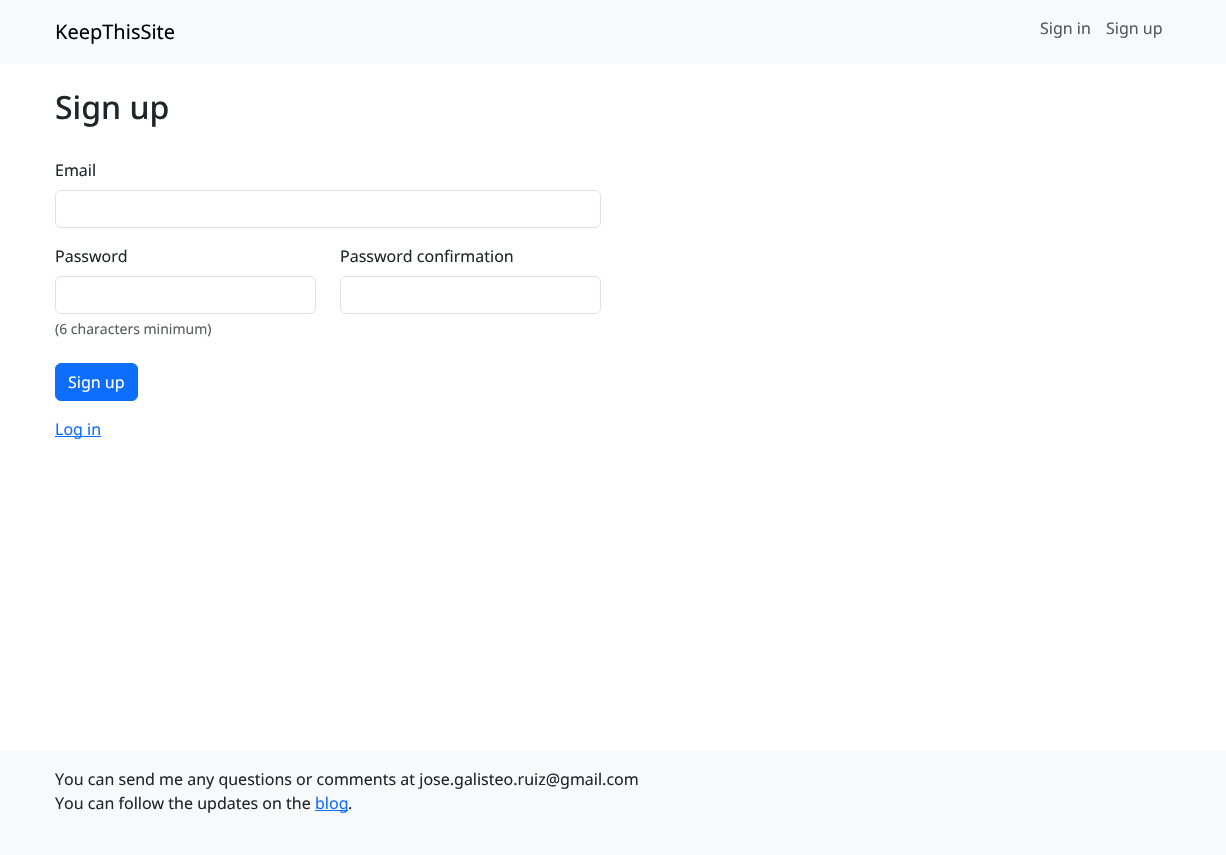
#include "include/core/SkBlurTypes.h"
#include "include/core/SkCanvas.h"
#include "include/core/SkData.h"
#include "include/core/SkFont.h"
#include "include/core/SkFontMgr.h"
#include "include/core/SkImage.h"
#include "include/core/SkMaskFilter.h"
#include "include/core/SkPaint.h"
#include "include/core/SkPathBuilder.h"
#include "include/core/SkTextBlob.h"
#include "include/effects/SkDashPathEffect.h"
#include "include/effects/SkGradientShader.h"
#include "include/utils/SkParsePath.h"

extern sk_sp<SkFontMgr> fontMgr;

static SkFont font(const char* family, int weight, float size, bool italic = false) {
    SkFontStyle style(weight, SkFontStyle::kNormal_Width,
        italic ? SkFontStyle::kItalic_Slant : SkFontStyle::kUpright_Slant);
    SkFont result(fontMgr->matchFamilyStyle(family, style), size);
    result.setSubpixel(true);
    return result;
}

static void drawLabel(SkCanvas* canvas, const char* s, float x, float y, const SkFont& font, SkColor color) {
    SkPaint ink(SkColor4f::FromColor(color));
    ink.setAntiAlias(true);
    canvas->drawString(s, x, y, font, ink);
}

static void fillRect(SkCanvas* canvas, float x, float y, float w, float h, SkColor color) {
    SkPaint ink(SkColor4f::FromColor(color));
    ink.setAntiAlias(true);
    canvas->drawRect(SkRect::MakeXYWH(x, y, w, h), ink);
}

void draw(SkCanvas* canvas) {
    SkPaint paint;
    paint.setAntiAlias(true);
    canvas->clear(0xFFFFFFFF);
    fillRect(canvas, 0, 0, 1226, 64, 0xFFF8F9FA);
    SkFont font1 = font("Noto Sans", 400, 20);
    drawLabel(canvas, "KeepThisSite", 55, 39, font1, 0xFF000000);
    SkFont font2 = font("Noto Sans", 400, 16);
    drawLabel(canvas, "Sign in", 1040, 34, font2, 0xFF575758);
    drawLabel(canvas, "Sign up", 1106, 34, font2, 0xFF575758);
    SkFont font3 = font("Noto Sans", 500, 32);
    drawLabel(canvas, "Sign up", 55, 119, font3, 0xFF212529);
    drawLabel(canvas, "Email", 55, 176, font2, 0xFF212529);
    paint.setStroke(true);
    paint.setStrokeWidth(1);
    paint.setColor(0xFFDEE2E6);
    canvas->drawRoundRect(SkRect::MakeXYWH(55.5f, 190.5f, 545, 37), 5.5f, 5.5f, paint);
    drawLabel(canvas, "Password", 55, 262, font2, 0xFF212529);
    canvas->drawRoundRect(SkRect::MakeXYWH(55.5f, 276.5f, 260, 37), 5.5f, 5.5f, paint);
    SkFont font4 = font("Noto Sans", 400, 14);
    drawLabel(canvas, "(6 characters minimum)", 55, 334, font4, 0xFF595C5F);
    drawLabel(canvas, "Password confirmation", 340, 262, font2, 0xFF212529);
    canvas->drawRoundRect(SkRect::MakeXYWH(340.5f, 276.5f, 260, 37), 5.5f, 5.5f, paint);
    paint.setStroke(false);
    paint.setColor(0xFF0D6EFD);
    canvas->drawRoundRect(SkRect::MakeXYWH(55.5f, 363.5f, 82, 37), 5.5f, 5.5f, paint);
    paint.setStroke(true);
    canvas->drawRoundRect(SkRect::MakeXYWH(55.5f, 363.5f, 82, 37), 5.5f, 5.5f, paint);
    drawLabel(canvas, "Sign up", 68, 388, font2, 0xFFFFFFFF);
    fillRect(canvas, 55, 436, 46, 1, 0xFF0D6EFD);
    drawLabel(canvas, "Log in", 55, 435, font2, 0xFF0D6EFD);
    fillRect(canvas, 0, 751, 1226, 104, 0xFFF8F9FA);
    drawLabel(canvas, "You can send me any questions or comments at jose.galisteo.ruiz@gmail.com", 55, 785, font2, 0xFF212529);
    drawLabel(canvas, "You can follow the updates on the", 55, 809, font2, 0xFF212529);
    fillRect(canvas, 315, 810, 33, 1, 0xFF0D6EFD);
    drawLabel(canvas, "blog", 315, 809, font2, 0xFF0D6EFD);
    drawLabel(canvas, ".", 348, 809, font2, 0xFF212529);
}
